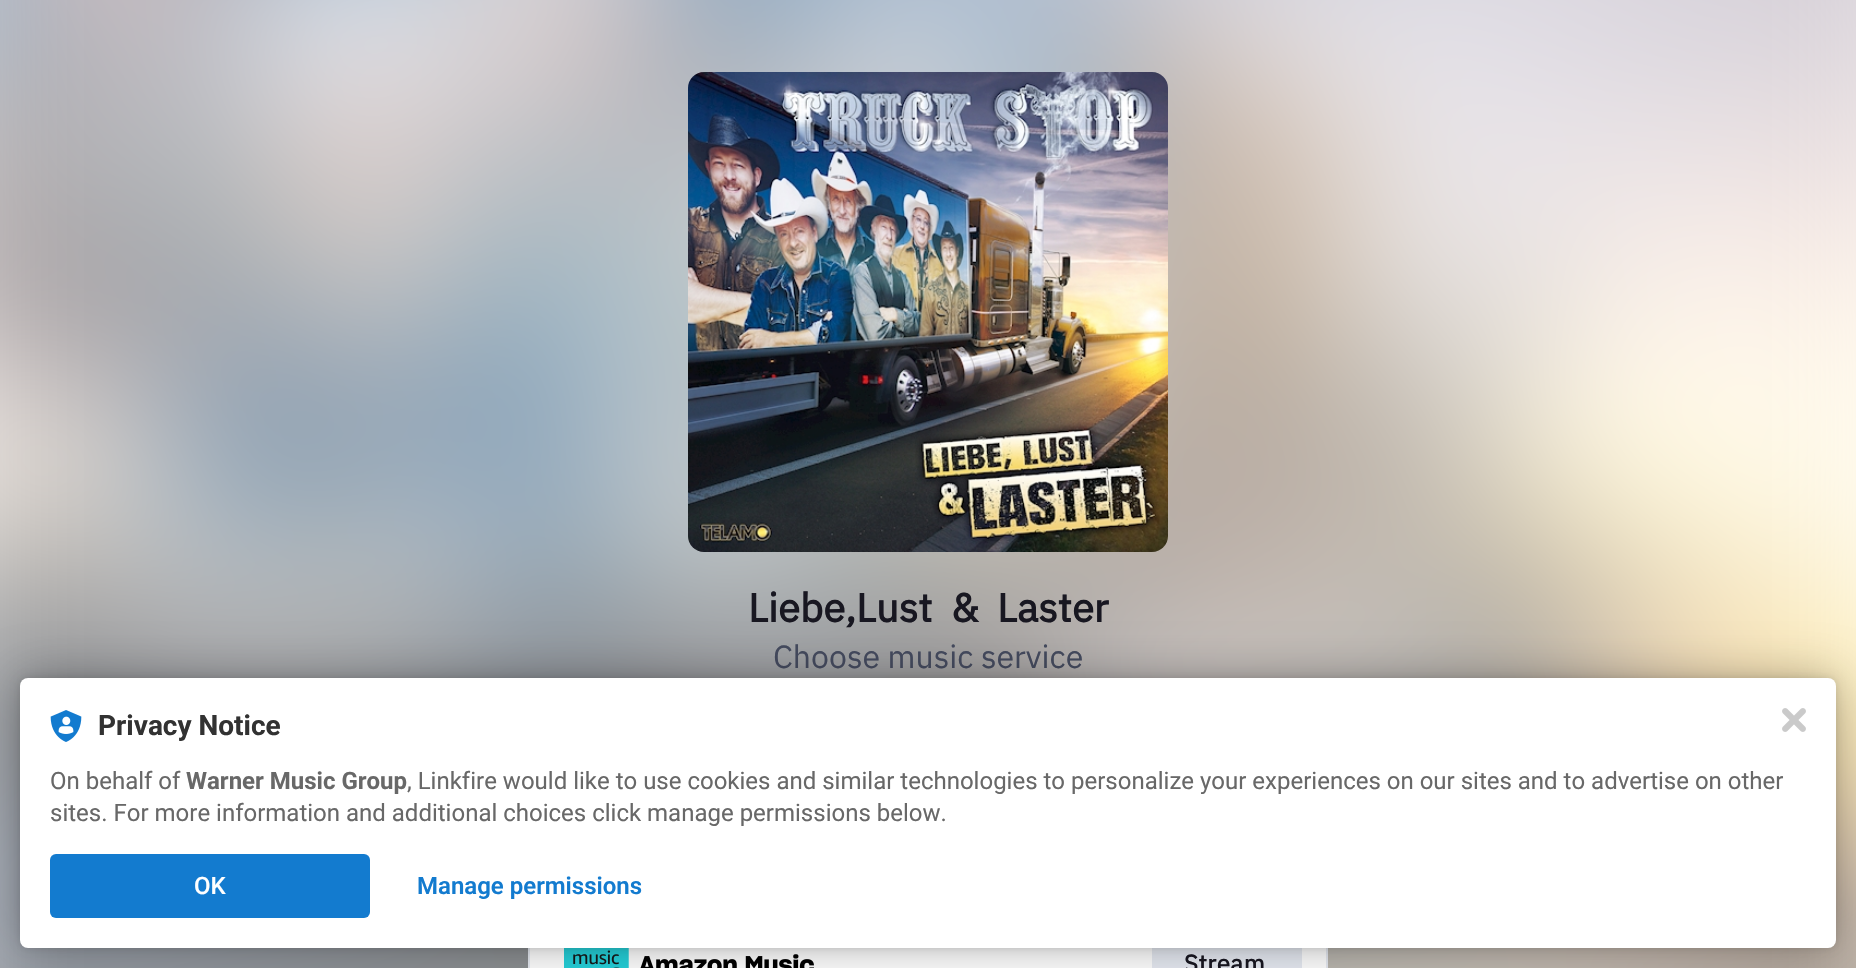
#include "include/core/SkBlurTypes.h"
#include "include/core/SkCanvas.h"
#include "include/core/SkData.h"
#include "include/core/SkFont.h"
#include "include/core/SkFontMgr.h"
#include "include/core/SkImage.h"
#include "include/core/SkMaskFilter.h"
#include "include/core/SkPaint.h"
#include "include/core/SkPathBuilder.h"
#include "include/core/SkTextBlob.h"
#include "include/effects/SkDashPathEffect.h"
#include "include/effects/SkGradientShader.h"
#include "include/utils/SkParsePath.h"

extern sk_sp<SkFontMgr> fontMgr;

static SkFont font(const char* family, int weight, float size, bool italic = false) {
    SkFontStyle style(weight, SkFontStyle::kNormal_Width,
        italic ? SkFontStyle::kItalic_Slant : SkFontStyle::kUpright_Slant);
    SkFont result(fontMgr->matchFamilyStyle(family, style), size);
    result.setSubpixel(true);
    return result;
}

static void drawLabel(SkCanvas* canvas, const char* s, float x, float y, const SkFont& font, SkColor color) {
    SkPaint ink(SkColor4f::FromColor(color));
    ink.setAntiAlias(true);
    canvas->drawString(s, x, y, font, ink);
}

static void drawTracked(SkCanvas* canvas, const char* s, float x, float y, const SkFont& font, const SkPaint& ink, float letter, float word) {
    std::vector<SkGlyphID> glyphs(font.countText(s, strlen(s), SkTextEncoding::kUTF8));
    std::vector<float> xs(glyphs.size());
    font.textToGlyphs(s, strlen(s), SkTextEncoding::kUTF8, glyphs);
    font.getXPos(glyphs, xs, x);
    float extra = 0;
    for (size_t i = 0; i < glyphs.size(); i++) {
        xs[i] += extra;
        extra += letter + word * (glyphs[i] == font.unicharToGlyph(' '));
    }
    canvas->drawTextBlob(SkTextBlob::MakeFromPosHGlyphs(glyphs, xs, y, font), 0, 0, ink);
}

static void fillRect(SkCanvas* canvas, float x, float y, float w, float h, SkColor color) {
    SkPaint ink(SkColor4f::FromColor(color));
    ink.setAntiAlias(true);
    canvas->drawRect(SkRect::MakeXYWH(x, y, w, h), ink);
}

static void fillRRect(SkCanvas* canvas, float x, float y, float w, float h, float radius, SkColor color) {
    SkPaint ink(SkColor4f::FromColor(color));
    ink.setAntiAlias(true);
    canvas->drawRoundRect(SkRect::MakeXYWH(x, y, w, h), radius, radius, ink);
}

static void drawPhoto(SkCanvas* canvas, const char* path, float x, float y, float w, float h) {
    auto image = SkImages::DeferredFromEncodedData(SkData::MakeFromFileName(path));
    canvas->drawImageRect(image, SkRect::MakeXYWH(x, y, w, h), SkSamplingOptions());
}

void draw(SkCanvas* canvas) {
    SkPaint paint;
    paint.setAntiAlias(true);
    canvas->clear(0xFFFFFFFF);
    drawPhoto(canvas, "assets/img1.png", 0, 0, 1856, 968);
    drawPhoto(canvas, "assets/img2.png", 688, 72, 480, 480);
    SkFont font1 = font("IBM Plex Sans", 700, 40);
    paint.setColor(0xFF181721);
    drawTracked(canvas, "Liebe,Lust & Laster", 748, 622, font1, paint, 0, 9);
    SkFont font2 = font("IBM Plex Sans", 400, 32);
    drawLabel(canvas, "Choose music service", 773, 668, font2, 0xFF454B5F);
    paint.setStroke(true);
    paint.setStrokeWidth(2);
    paint.setColor(0xFFE6EAF2);
    canvas->drawRect(SkRect::MakeXYWH(529, 745, 798, 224), paint);
    fillRect(canvas, 530, 948, 796, 20, 0xFFFFFFFF);
    drawPhoto(canvas, "assets/img3.png", 564, 948, 250, 20);
    fillRect(canvas, 1152, 948, 150, 20, 0xFFE6EAF2);
    SkFont font3 = font("IBM Plex Sans", 700, 24);
    paint.setStroke(false);
    paint.setColor(0xFF181721);
    drawTracked(canvas, "Stream", 1184, 972, font3, paint, 0.5f, 0);
    paint.setColor(0x1F000000);
    paint.setMaskFilter(SkMaskFilter::MakeBlur(kNormal_SkBlurStyle, 4));
    canvas->drawRoundRect(SkRect::MakeXYWH(20, 678, 1816, 270), 8, 8, paint);
    paint.setMaskFilter(nullptr);
    paint.setColor(0x4D000000);
    paint.setMaskFilter(SkMaskFilter::MakeBlur(kNormal_SkBlurStyle, 24));
    canvas->drawRoundRect(SkRect::MakeXYWH(20, 678, 1816, 270), 8, 8, paint);
    paint.setMaskFilter(nullptr);
    fillRRect(canvas, 20, 678, 1816, 270, 8, 0xFFFFFFFF);
    drawPhoto(canvas, "assets/img4.png", 50, 710, 32, 32);
    SkFont font4 = font("Roboto", 700, 28);
    drawLabel(canvas, "Privacy Notice", 98, 735, font4, 0xFF323232);
    SkFont font5 = font("Roboto", 400, 24);
    drawLabel(canvas, "On behalf of", 50, 789, font5, 0xFF686868);
    SkFont font6 = font("Roboto", 700, 24);
    drawLabel(canvas, "Warner Music Group", 186, 789, font6, 0xFF686868);
    drawLabel(canvas, ", Linkfire would like to use cookies and similar technologies to personalize your experiences on our sites and to advertise on other", 407, 789, font5, 0xFF686868);
    drawLabel(canvas, "sites. For more information and additional choices click manage permissions below.", 50, 821, font5, 0xFF686868);
    fillRRect(canvas, 50, 854, 320, 64, 6, 0xFF137BCF);
    SkFont font7 = font("Roboto", 500, 24);
    drawLabel(canvas, "OK", 194, 894, font7, 0xFFFFFFFF);
    SkFont font8 = font("Roboto", 600, 24);
    drawLabel(canvas, "Manage permissions", 417, 894, font8, 0xFF137BCF);
    drawPhoto(canvas, "assets/img5.png", 1782, 708, 24, 24);
}
